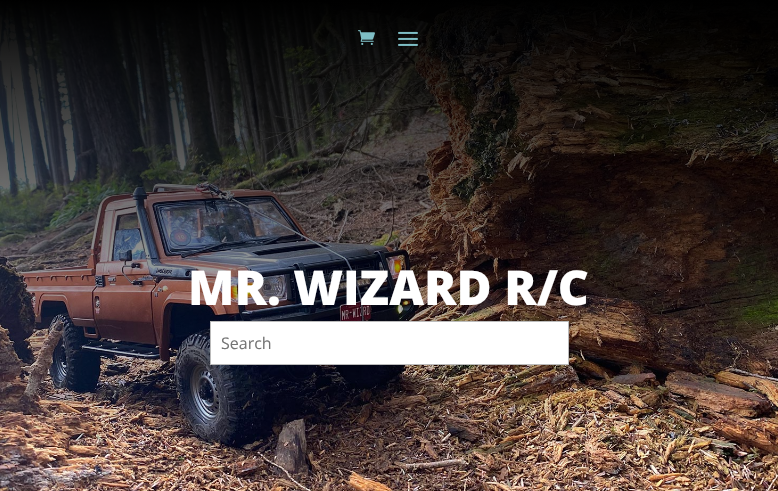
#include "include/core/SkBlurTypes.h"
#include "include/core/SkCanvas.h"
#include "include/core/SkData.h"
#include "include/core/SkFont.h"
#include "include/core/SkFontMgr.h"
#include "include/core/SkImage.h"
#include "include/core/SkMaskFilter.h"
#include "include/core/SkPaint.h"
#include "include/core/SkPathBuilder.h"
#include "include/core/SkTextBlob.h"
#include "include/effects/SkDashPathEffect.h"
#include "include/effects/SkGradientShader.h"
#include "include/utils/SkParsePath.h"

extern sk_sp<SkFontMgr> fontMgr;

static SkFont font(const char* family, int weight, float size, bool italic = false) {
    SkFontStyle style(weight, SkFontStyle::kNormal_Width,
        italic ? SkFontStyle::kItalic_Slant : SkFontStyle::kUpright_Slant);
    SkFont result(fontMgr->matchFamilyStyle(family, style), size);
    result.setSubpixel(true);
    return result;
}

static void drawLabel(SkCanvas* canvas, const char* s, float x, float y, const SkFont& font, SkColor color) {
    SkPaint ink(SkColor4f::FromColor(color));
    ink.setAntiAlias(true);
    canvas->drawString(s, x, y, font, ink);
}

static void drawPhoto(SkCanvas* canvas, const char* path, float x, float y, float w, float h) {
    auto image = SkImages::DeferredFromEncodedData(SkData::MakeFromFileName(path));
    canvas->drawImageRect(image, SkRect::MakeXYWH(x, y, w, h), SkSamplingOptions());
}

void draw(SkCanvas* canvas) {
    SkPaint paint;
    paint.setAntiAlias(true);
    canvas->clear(0xFFFFFFFF);
    drawPhoto(canvas, "assets/img1.png", 0, 0, 778, 491);
    drawPhoto(canvas, "assets/img2.png", 358, 30, 17, 15);
    drawPhoto(canvas, "assets/img3.png", 398, 31, 20, 15);
    SkFont font1 = font("Open Sans", 800, 48);
    drawLabel(canvas, "MR. WIZARD R/C", 188, 305, font1, 0xFFFFFFFF);
    paint.setColor(0xFFFFFFFF);
    canvas->drawRect(SkRect::MakeXYWH(210.5f, 321.5f, 358, 43), paint);
    paint.setStroke(true);
    paint.setStrokeWidth(1);
    paint.setColor(0xFFBBBBBB);
    canvas->drawRect(SkRect::MakeXYWH(210.5f, 321.5f, 358, 43), paint);
    SkFont font2 = font("Open Sans", 400, 16);
    drawLabel(canvas, "Search", 221, 349, font2, 0xFF757575);
}
